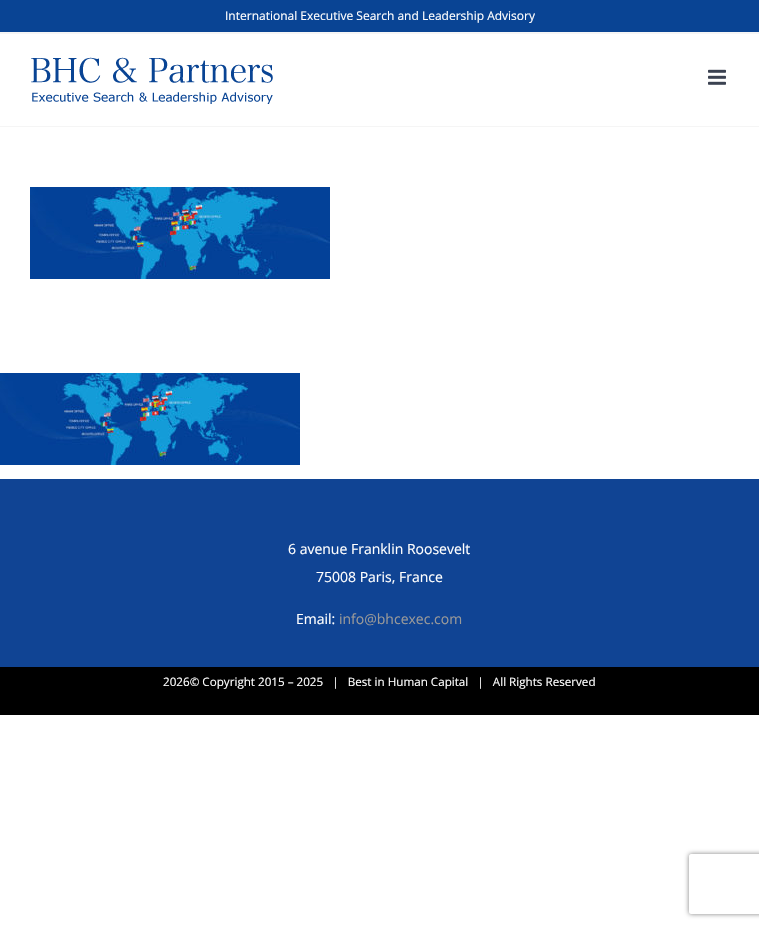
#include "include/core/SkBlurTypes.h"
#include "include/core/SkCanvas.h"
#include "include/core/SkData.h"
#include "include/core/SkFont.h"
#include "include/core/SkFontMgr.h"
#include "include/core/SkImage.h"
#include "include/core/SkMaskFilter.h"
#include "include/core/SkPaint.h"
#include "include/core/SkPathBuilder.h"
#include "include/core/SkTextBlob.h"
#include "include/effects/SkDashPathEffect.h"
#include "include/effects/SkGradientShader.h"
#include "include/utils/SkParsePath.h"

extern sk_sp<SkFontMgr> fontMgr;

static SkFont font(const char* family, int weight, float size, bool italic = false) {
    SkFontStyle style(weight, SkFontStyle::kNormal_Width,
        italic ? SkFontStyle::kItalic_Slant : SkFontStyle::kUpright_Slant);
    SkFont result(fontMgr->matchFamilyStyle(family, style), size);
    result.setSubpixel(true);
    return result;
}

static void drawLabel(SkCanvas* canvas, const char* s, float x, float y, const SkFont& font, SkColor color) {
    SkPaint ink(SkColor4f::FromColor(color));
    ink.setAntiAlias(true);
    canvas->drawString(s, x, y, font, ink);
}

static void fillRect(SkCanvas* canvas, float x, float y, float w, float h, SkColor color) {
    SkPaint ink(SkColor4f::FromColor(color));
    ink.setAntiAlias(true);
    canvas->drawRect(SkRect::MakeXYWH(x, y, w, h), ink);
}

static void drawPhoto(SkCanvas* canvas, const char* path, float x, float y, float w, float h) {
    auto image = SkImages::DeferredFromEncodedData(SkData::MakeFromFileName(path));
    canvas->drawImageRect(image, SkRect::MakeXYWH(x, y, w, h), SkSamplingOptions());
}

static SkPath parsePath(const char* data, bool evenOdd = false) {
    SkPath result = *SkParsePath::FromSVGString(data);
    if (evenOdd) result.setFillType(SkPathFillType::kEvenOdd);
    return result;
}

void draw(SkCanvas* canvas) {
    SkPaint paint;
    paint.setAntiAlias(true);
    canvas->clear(0xFFFFFFFF);
    fillRect(canvas, 0, 0, 759, 32, 0xFF094494);
    fillRect(canvas, 0, 32, 759, 2, 0xFFF5F5F5);
    SkFont font1 = font("Open Sans", 400, 12);
    drawLabel(canvas, "International Executive Search and Leadership Advisory", 225, 20, font1, 0xFFFFFFFF);
    fillRect(canvas, 0, 126, 759, 1, 0xFFF5F5F5);
    drawPhoto(canvas, "assets/img1.png", 31, 57, 242, 47);
    drawPhoto(canvas, "assets/img2.png", 708, 69, 18, 16);
    drawPhoto(canvas, "assets/img3.png", 30, 187, 300, 92);
    drawPhoto(canvas, "assets/img3.png", 0, 373, 300, 92);
    fillRect(canvas, 0, 479, 759, 188, 0xFF104494);
    SkFont font2 = font("Open Sans", 400, 14);
    drawLabel(canvas, "6 avenue Franklin Roosevelt", 288, 554, font2, 0xFFFFFFFF);
    drawLabel(canvas, "75008 Paris, France", 316, 582, font2, 0xFFFFFFFF);
    drawLabel(canvas, "Email:", 296, 624, font2, 0xFFFFFFFF);
    drawLabel(canvas, "info@bhcexec.com", 339, 624, font2, 0xFF999999);
    fillRect(canvas, 0, 667, 759, 48, 0xFF000000);
    SkFont font3 = font("Open Sans", 400, 11.65f);
    drawLabel(canvas, "2026© Copyright 2015 – 2025   |   Best in Human Capital   |   All Rights Reserved", 163, 686, font3, 0xFFFFFFFF);
    canvas->save();
    canvas->clipPath(parsePath("M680 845H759V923H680ZM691 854H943C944 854 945 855 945 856V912C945 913 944 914 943 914H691C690 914 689 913 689 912V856C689 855 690 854 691 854Z", true), true);
    paint.setColor(0xFF808080);
    paint.setMaskFilter(SkMaskFilter::MakeBlur(kNormal_SkBlurStyle, 2.5f));
    canvas->drawRoundRect(SkRect::MakeXYWH(689, 854, 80, 60), 2, 2, paint);
    paint.setMaskFilter(nullptr);
    canvas->restore();
}
